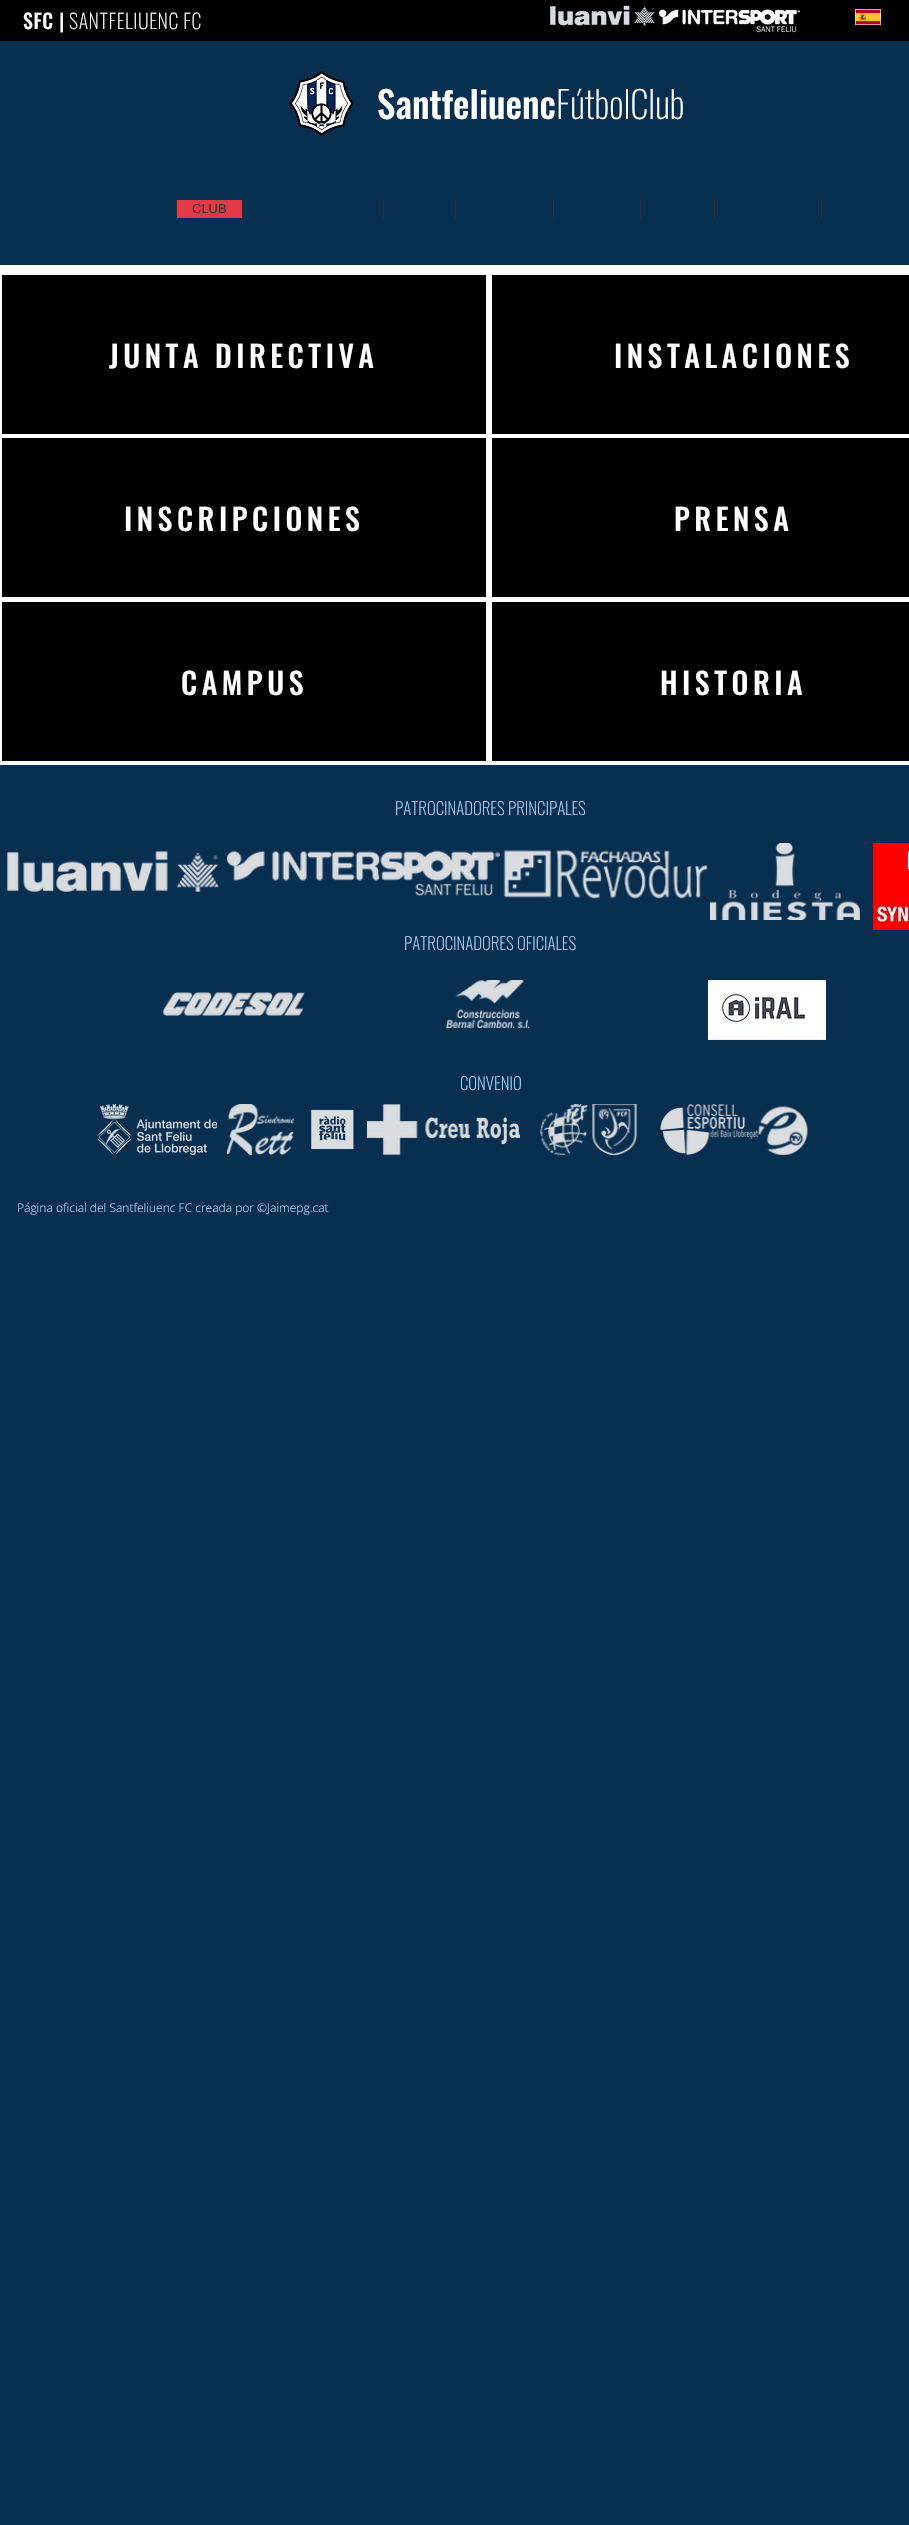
#include "include/core/SkBlurTypes.h"
#include "include/core/SkCanvas.h"
#include "include/core/SkData.h"
#include "include/core/SkFont.h"
#include "include/core/SkFontMgr.h"
#include "include/core/SkImage.h"
#include "include/core/SkMaskFilter.h"
#include "include/core/SkPaint.h"
#include "include/core/SkPathBuilder.h"
#include "include/core/SkTextBlob.h"
#include "include/effects/SkDashPathEffect.h"
#include "include/effects/SkGradientShader.h"
#include "include/utils/SkParsePath.h"

extern sk_sp<SkFontMgr> fontMgr;

static SkFont font(const char* family, int weight, float size, bool italic = false) {
    SkFontStyle style(weight, SkFontStyle::kNormal_Width,
        italic ? SkFontStyle::kItalic_Slant : SkFontStyle::kUpright_Slant);
    SkFont result(fontMgr->matchFamilyStyle(family, style), size);
    result.setSubpixel(true);
    return result;
}

static void drawLabel(SkCanvas* canvas, const char* s, float x, float y, const SkFont& font, SkColor color) {
    SkPaint ink(SkColor4f::FromColor(color));
    ink.setAntiAlias(true);
    canvas->drawString(s, x, y, font, ink);
}

static void drawTracked(SkCanvas* canvas, const char* s, float x, float y, const SkFont& font, const SkPaint& ink, float letter, float word) {
    std::vector<SkGlyphID> glyphs(font.countText(s, strlen(s), SkTextEncoding::kUTF8));
    std::vector<float> xs(glyphs.size());
    font.textToGlyphs(s, strlen(s), SkTextEncoding::kUTF8, glyphs);
    font.getXPos(glyphs, xs, x);
    float extra = 0;
    for (size_t i = 0; i < glyphs.size(); i++) {
        xs[i] += extra;
        extra += letter + word * (glyphs[i] == font.unicharToGlyph(' '));
    }
    canvas->drawTextBlob(SkTextBlob::MakeFromPosHGlyphs(glyphs, xs, y, font), 0, 0, ink);
}

static void fillRect(SkCanvas* canvas, float x, float y, float w, float h, SkColor color) {
    SkPaint ink(SkColor4f::FromColor(color));
    ink.setAntiAlias(true);
    canvas->drawRect(SkRect::MakeXYWH(x, y, w, h), ink);
}

static void drawPhoto(SkCanvas* canvas, const char* path, float x, float y, float w, float h) {
    auto image = SkImages::DeferredFromEncodedData(SkData::MakeFromFileName(path));
    canvas->drawImageRect(image, SkRect::MakeXYWH(x, y, w, h), SkSamplingOptions());
}

void draw(SkCanvas* canvas) {
    SkPaint paint;
    paint.setAntiAlias(true);
    canvas->clear(0xFF082E50);
    fillRect(canvas, 0, 0, 909, 41, 0xFF000000);
    SkFont font1 = font("Oswald", 500, 20);
    paint.setColor(0xFFFFFFFF);
    drawTracked(canvas, "SFC |", 23, 29, font1, paint, 0.6f, 0);
    SkFont font2 = font("Oswald", 200, 20);
    drawTracked(canvas, "SANTFELIUENC FC", 69, 29, font2, paint, 0.6f, 0);
    drawPhoto(canvas, "assets/img1.png", 550, 5, 105, 21);
    drawPhoto(canvas, "assets/img2.png", 659, 9, 141, 24);
    drawPhoto(canvas, "assets/img3.png", 855, 9, 26, 16);
    drawPhoto(canvas, "assets/img4.png", 289, 71, 65, 65);
    SkFont font3 = font("Oswald", 500, 37);
    drawLabel(canvas, "Santfeliuenc", 377, 119, font3, 0xFFFFFFFF);
    SkFont font4 = font("Oswald", 200, 37);
    drawLabel(canvas, "FútbolClub", 556, 119, font4, 0xFFFFFFFF);
    fillRect(canvas, 177, 200, 65, 18, 0xFFE13A44);
    fillRect(canvas, 176, 200, 1, 18, 0xFF303030);
    SkFont font5 = font("Liberation Sans", 400, 13);
    drawLabel(canvas, "CLUB", 192, 213, font5, 0xFF303030);
    fillRect(canvas, 245, 200, 1, 18, 0xFF303030);
    fillRect(canvas, 383, 200, 1, 18, 0xFF303030);
    fillRect(canvas, 455, 200, 1, 18, 0xFF303030);
    fillRect(canvas, 553, 200, 1, 18, 0xFF303030);
    fillRect(canvas, 640, 200, 1, 18, 0xFF303030);
    fillRect(canvas, 714, 200, 1, 18, 0xFF303030);
    fillRect(canvas, 821, 200, 1, 18, 0xFF303030);
    fillRect(canvas, 0, 265, 909, 500, 0xFFFFFFFF);
    fillRect(canvas, 2, 275, 484, 159, 0xFF000000);
    SkFont font6 = font("Oswald", 500, 30);
    drawTracked(canvas, "JUNTA DIRECTIVA", 109, 368, font6, paint, 4.5f, 0);
    fillRect(canvas, 492, 275, 417, 159, 0xFF000000);
    drawTracked(canvas, "INSTALACIONES", 614, 368, font6, paint, 4.5f, 0);
    fillRect(canvas, 2, 438, 484, 159, 0xFF000000);
    drawTracked(canvas, "INSCRIPCIONES", 124, 531, font6, paint, 4.5f, 0);
    fillRect(canvas, 492, 438, 417, 159, 0xFF000000);
    drawTracked(canvas, "PRENSA", 674, 531, font6, paint, 4.5f, 0);
    fillRect(canvas, 2, 602, 484, 159, 0xFF000000);
    drawTracked(canvas, "CAMPUS", 181, 695, font6, paint, 4.5f, 0);
    fillRect(canvas, 492, 602, 417, 159, 0xFF000000);
    drawTracked(canvas, "HISTORIA", 660, 695, font6, paint, 4.5f, 0);
    SkFont font7 = font("Oswald", 200, 17);
    drawLabel(canvas, "PATROCINADORES PRINCIPALES", 395, 815, font7, 0xFFAFD7FA);
    drawPhoto(canvas, "assets/img5.png", 7, 851, 212, 41);
    drawPhoto(canvas, "assets/img6.png", 227, 850, 273, 47);
    drawPhoto(canvas, "assets/img7.png", 503, 849, 205, 50);
    drawPhoto(canvas, "assets/img8.png", 710, 843, 150, 77);
    drawPhoto(canvas, "assets/img9.png", 873, 843, 36, 87);
    drawLabel(canvas, "PATROCINADORES OFICIALES", 404, 950, font7, 0xFFAFD7FA);
    drawPhoto(canvas, "assets/img10.png", 163, 992, 142, 24);
    drawPhoto(canvas, "assets/img11.png", 446, 980, 84, 48);
    drawPhoto(canvas, "assets/img12.png", 708, 980, 118, 60);
    drawLabel(canvas, "CONVENIO", 460, 1090, font7, 0xFFAFD7FA);
    drawPhoto(canvas, "assets/img13.png", 97, 1104, 120, 51);
    drawPhoto(canvas, "assets/img14.png", 227, 1104, 67, 51);
    drawPhoto(canvas, "assets/img15.png", 311, 1109, 43, 41);
    drawPhoto(canvas, "assets/img16.png", 367, 1104, 153, 51);
    drawPhoto(canvas, "assets/img17.png", 540, 1104, 48, 51);
    drawPhoto(canvas, "assets/img18.png", 592, 1104, 45, 51);
    drawPhoto(canvas, "assets/img19.png", 660, 1104, 98, 51);
    drawPhoto(canvas, "assets/img20.png", 758, 1106, 50, 49);
    SkFont font8 = font("Open Sans", 300, 12);
    drawLabel(canvas, "Página oficial del Santfeliuenc FC creada por ©Jaimepg.cat", 17, 1212, font8, 0xFFAFD7FA);
}
